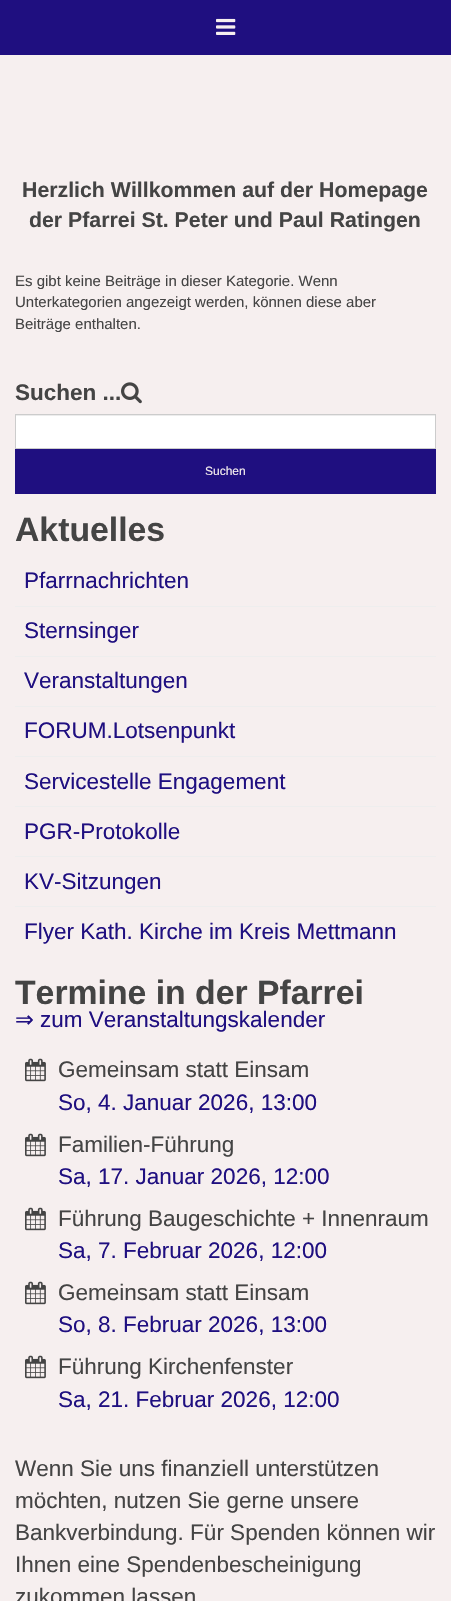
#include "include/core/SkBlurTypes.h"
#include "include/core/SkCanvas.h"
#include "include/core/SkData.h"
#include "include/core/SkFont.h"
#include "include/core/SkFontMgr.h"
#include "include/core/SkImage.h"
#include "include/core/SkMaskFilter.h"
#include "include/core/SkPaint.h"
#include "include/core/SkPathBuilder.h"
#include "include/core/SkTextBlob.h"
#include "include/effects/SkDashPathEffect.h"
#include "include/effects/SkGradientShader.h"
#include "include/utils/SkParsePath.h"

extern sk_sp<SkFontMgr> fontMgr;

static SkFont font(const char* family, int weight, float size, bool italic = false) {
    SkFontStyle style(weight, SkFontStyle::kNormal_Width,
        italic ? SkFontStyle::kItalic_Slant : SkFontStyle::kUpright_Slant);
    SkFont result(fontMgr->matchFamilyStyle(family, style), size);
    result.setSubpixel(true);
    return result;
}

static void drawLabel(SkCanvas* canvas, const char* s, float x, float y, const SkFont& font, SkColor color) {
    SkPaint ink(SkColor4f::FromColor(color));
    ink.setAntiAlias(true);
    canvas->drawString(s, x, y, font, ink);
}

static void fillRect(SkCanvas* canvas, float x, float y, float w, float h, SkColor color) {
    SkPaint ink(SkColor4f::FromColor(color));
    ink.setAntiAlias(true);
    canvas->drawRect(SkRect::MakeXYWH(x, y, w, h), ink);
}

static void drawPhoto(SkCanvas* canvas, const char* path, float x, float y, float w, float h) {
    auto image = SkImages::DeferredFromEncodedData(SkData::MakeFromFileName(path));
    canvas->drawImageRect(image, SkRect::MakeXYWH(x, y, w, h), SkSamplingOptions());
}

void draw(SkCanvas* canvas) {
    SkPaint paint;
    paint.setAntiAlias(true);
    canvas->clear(0xFFF6EFEF);
    fillRect(canvas, 0, 0, 451, 55, 0xFF1F0F80);
    drawPhoto(canvas, "assets/img1.png", 216, 18, 20, 17);
    SkFont font1 = font("Liberation Sans", 700, 21.3f);
    drawLabel(canvas, "Herzlich Willkommen auf der Homepage", 22, 197, font1, 0xFF444444);
    drawLabel(canvas, "der Pfarrei St. Peter und Paul Ratingen", 29, 227, font1, 0xFF444444);
    SkFont font2 = font("Liberation Sans", 400, 15);
    drawLabel(canvas, "Es gibt keine Beiträge in dieser Kategorie. Wenn", 15, 286, font2, 0xFF444444);
    drawLabel(canvas, "Unterkategorien angezeigt werden, können diese aber", 15, 307, font2, 0xFF444444);
    drawLabel(canvas, "Beiträge enthalten.", 15, 329, font2, 0xFF444444);
    SkFont font3 = font("Liberation Sans", 700, 22.5f);
    drawLabel(canvas, "Suchen ...", 15, 400, font3, 0xFF444444);
    drawPhoto(canvas, "assets/img2.png", 121, 382, 21, 22);
    fillRect(canvas, 16, 416, 419, 32, 0xFFFFFFFF);
    fillRect(canvas, 16, 415, 419, 1, 0xFFECECEC);
    paint.setStroke(true);
    paint.setStrokeWidth(1);
    paint.setColor(0xFFCCCCCC);
    canvas->drawRect(SkRect::MakeXYWH(15.5f, 414.5f, 420, 34), paint);
    fillRect(canvas, 15, 449, 421, 45, 0xFF1F0F80);
    SkFont font4 = font("Liberation Sans", 400, 12);
    drawLabel(canvas, "Suchen", 205, 475, font4, 0xFFF6EFEF);
    SkFont font5 = font("Liberation Sans", 700, 33.75f);
    drawLabel(canvas, "Aktuelles", 15, 541, font5, 0xFF444444);
    SkFont font6 = font("Liberation Sans", 400, 22.5f);
    drawLabel(canvas, "Pfarrnachrichten", 24, 588, font6, 0xFF1F0F80);
    fillRect(canvas, 15, 606, 421, 1, 0xFFEEEEEE);
    drawLabel(canvas, "Sternsinger", 24, 638, font6, 0xFF1F0F80);
    fillRect(canvas, 15, 656, 421, 1, 0xFFEEEEEE);
    drawLabel(canvas, "Veranstaltungen", 24, 688, font6, 0xFF1F0F80);
    fillRect(canvas, 15, 706, 421, 1, 0xFFEEEEEE);
    drawLabel(canvas, "FORUM.Lotsenpunkt", 24, 738, font6, 0xFF1F0F80);
    fillRect(canvas, 15, 756, 421, 1, 0xFFEEEEEE);
    drawLabel(canvas, "Servicestelle Engagement", 24, 789, font6, 0xFF1F0F80);
    fillRect(canvas, 15, 806, 421, 1, 0xFFEEEEEE);
    drawLabel(canvas, "PGR-Protokolle", 24, 839, font6, 0xFF1F0F80);
    fillRect(canvas, 15, 856, 421, 1, 0xFFEEEEEE);
    drawLabel(canvas, "KV-Sitzungen", 24, 889, font6, 0xFF1F0F80);
    fillRect(canvas, 15, 906, 421, 1, 0xFFEEEEEE);
    drawLabel(canvas, "Flyer Kath. Kirche im Kreis Mettmann", 24, 939, font6, 0xFF1F0F80);
    drawLabel(canvas, "Termine in der Pfarrei", 15, 1004, font5, 0xFF444444);
    SkFont font7 = font("DejaVu Sans", 400, 22.5f);
    drawLabel(canvas, "⇒", 15, 1027, font7, 0xFF1F0F80);
    drawLabel(canvas, "zum Veranstaltungskalender", 40, 1027, font6, 0xFF1F0F80);
    drawPhoto(canvas, "assets/img3.png", 25, 1058, 21, 24);
    drawLabel(canvas, "Gemeinsam statt Einsam", 58, 1077, font6, 0xFF444444);
    drawLabel(canvas, "So, 4. Januar 2026, 13:00", 58, 1110, font6, 0xFF1F0F80);
    drawPhoto(canvas, "assets/img3.png", 25, 1133, 21, 24);
    drawLabel(canvas, "Familien-Führung", 58, 1152, font6, 0xFF444444);
    drawLabel(canvas, "Sa, 17. Januar 2026, 12:00", 58, 1184, font6, 0xFF1F0F80);
    drawPhoto(canvas, "assets/img3.png", 25, 1207, 21, 24);
    drawLabel(canvas, "Führung Baugeschichte + Innenraum", 58, 1226, font6, 0xFF444444);
    drawLabel(canvas, "Sa, 7. Februar 2026, 12:00", 58, 1258, font6, 0xFF1F0F80);
    drawPhoto(canvas, "assets/img3.png", 25, 1281, 21, 24);
    drawLabel(canvas, "Gemeinsam statt Einsam", 58, 1300, font6, 0xFF444444);
    drawLabel(canvas, "So, 8. Februar 2026, 13:00", 58, 1332, font6, 0xFF1F0F80);
    drawPhoto(canvas, "assets/img3.png", 25, 1355, 21, 24);
    drawLabel(canvas, "Führung Kirchenfenster", 58, 1374, font6, 0xFF444444);
    drawLabel(canvas, "Sa, 21. Februar 2026, 12:00", 58, 1407, font6, 0xFF1F0F80);
    drawLabel(canvas, "Wenn Sie uns finanziell unterstützen", 15, 1476, font6, 0xFF444444);
    drawLabel(canvas, "möchten, nutzen Sie gerne unsere", 15, 1508, font6, 0xFF444444);
    drawLabel(canvas, "Bankverbindung. Für Spenden können wir", 15, 1540, font6, 0xFF444444);
    drawLabel(canvas, "Ihnen eine Spendenbescheinigung", 15, 1572, font6, 0xFF444444);
    drawLabel(canvas, "zukommen lassen", 15, 1604, font6, 0xFF444444);
}
